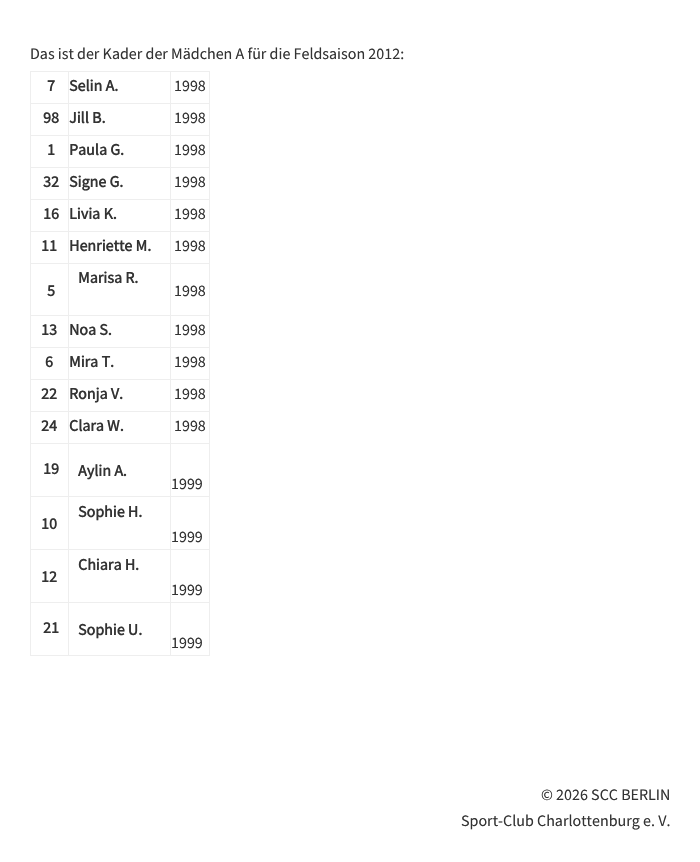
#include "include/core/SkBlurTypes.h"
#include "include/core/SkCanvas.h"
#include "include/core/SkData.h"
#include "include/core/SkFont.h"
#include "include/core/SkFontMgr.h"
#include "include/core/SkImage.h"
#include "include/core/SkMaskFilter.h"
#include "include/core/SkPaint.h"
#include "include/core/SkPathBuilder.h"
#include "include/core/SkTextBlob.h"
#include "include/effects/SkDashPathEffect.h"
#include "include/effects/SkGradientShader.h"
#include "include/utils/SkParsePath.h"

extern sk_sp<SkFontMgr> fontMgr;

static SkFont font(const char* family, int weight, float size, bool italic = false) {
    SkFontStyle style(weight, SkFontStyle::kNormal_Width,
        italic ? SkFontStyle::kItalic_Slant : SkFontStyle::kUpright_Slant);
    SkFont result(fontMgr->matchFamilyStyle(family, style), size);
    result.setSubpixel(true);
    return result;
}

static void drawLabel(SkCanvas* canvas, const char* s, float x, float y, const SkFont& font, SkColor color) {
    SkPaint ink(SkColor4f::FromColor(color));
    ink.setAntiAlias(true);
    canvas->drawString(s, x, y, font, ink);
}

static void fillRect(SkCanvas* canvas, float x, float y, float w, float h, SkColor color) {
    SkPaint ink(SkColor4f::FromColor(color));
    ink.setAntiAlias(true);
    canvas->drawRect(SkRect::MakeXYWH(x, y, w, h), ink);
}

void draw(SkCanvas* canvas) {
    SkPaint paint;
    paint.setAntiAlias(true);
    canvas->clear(0xFFFFFFFF);
    SkFont font1 = font("Source Sans Pro", 400, 16);
    drawLabel(canvas, "Das ist der Kader der Mädchen A für die Feldsaison 2012:", 30, 59, font1, 0xFF333333);
    fillRect(canvas, 170, 71, 40, 1, 0xFFEEEEEE);
    fillRect(canvas, 170, 103, 40, 1, 0xFFEEEEEE);
    fillRect(canvas, 170, 135, 40, 1, 0xFFEEEEEE);
    fillRect(canvas, 170, 167, 40, 1, 0xFFEEEEEE);
    fillRect(canvas, 170, 199, 40, 1, 0xFFEEEEEE);
    fillRect(canvas, 170, 231, 40, 1, 0xFFEEEEEE);
    fillRect(canvas, 170, 263, 40, 1, 0xFFEEEEEE);
    fillRect(canvas, 170, 315, 40, 1, 0xFFEEEEEE);
    fillRect(canvas, 170, 347, 40, 1, 0xFFEEEEEE);
    fillRect(canvas, 170, 379, 40, 1, 0xFFEEEEEE);
    fillRect(canvas, 170, 411, 40, 1, 0xFFEEEEEE);
    fillRect(canvas, 170, 443, 40, 1, 0xFFEEEEEE);
    fillRect(canvas, 170, 496, 40, 1, 0xFFEEEEEE);
    fillRect(canvas, 170, 549, 40, 1, 0xFFEEEEEE);
    fillRect(canvas, 170, 602, 40, 1, 0xFFEEEEEE);
    fillRect(canvas, 209, 602, 1, 54, 0xFFEEEEEE);
    fillRect(canvas, 170, 655, 40, 1, 0xFFEEEEEE);
    fillRect(canvas, 170, 602, 1, 54, 0xFFEEEEEE);
    fillRect(canvas, 68, 602, 103, 1, 0xFFEEEEEE);
    fillRect(canvas, 170, 549, 1, 54, 0xFFEEEEEE);
    fillRect(canvas, 68, 549, 103, 1, 0xFFEEEEEE);
    fillRect(canvas, 170, 496, 1, 54, 0xFFEEEEEE);
    fillRect(canvas, 68, 496, 103, 1, 0xFFEEEEEE);
    fillRect(canvas, 170, 443, 1, 54, 0xFFEEEEEE);
    fillRect(canvas, 68, 443, 103, 1, 0xFFEEEEEE);
    fillRect(canvas, 170, 411, 1, 33, 0xFFEEEEEE);
    fillRect(canvas, 68, 411, 103, 1, 0xFFEEEEEE);
    fillRect(canvas, 170, 379, 1, 33, 0xFFEEEEEE);
    fillRect(canvas, 68, 379, 103, 1, 0xFFEEEEEE);
    fillRect(canvas, 170, 347, 1, 33, 0xFFEEEEEE);
    fillRect(canvas, 68, 347, 103, 1, 0xFFEEEEEE);
    fillRect(canvas, 170, 315, 1, 33, 0xFFEEEEEE);
    fillRect(canvas, 68, 315, 103, 1, 0xFFEEEEEE);
    fillRect(canvas, 170, 263, 1, 53, 0xFFEEEEEE);
    fillRect(canvas, 68, 263, 103, 1, 0xFFEEEEEE);
    fillRect(canvas, 170, 231, 1, 33, 0xFFEEEEEE);
    fillRect(canvas, 68, 231, 103, 1, 0xFFEEEEEE);
    fillRect(canvas, 170, 199, 1, 33, 0xFFEEEEEE);
    fillRect(canvas, 68, 199, 103, 1, 0xFFEEEEEE);
    fillRect(canvas, 170, 167, 1, 33, 0xFFEEEEEE);
    fillRect(canvas, 68, 167, 103, 1, 0xFFEEEEEE);
    fillRect(canvas, 170, 135, 1, 33, 0xFFEEEEEE);
    fillRect(canvas, 68, 135, 103, 1, 0xFFEEEEEE);
    fillRect(canvas, 170, 103, 1, 33, 0xFFEEEEEE);
    fillRect(canvas, 68, 103, 103, 1, 0xFFEEEEEE);
    fillRect(canvas, 170, 71, 1, 33, 0xFFEEEEEE);
    fillRect(canvas, 68, 71, 103, 1, 0xFFEEEEEE);
    fillRect(canvas, 68, 655, 103, 1, 0xFFEEEEEE);
    fillRect(canvas, 68, 602, 1, 54, 0xFFEEEEEE);
    fillRect(canvas, 30, 602, 39, 1, 0xFFEEEEEE);
    fillRect(canvas, 68, 549, 1, 54, 0xFFEEEEEE);
    fillRect(canvas, 30, 549, 39, 1, 0xFFEEEEEE);
    fillRect(canvas, 68, 496, 1, 54, 0xFFEEEEEE);
    fillRect(canvas, 30, 496, 39, 1, 0xFFEEEEEE);
    fillRect(canvas, 68, 443, 1, 54, 0xFFEEEEEE);
    fillRect(canvas, 30, 443, 39, 1, 0xFFEEEEEE);
    fillRect(canvas, 68, 411, 1, 33, 0xFFEEEEEE);
    fillRect(canvas, 30, 411, 39, 1, 0xFFEEEEEE);
    fillRect(canvas, 68, 379, 1, 33, 0xFFEEEEEE);
    fillRect(canvas, 30, 379, 39, 1, 0xFFEEEEEE);
    fillRect(canvas, 68, 347, 1, 33, 0xFFEEEEEE);
    fillRect(canvas, 30, 347, 39, 1, 0xFFEEEEEE);
    fillRect(canvas, 68, 315, 1, 33, 0xFFEEEEEE);
    fillRect(canvas, 30, 315, 39, 1, 0xFFEEEEEE);
    fillRect(canvas, 68, 263, 1, 53, 0xFFEEEEEE);
    fillRect(canvas, 30, 263, 39, 1, 0xFFEEEEEE);
    fillRect(canvas, 68, 231, 1, 33, 0xFFEEEEEE);
    fillRect(canvas, 30, 231, 39, 1, 0xFFEEEEEE);
    fillRect(canvas, 68, 199, 1, 33, 0xFFEEEEEE);
    fillRect(canvas, 30, 199, 39, 1, 0xFFEEEEEE);
    fillRect(canvas, 68, 167, 1, 33, 0xFFEEEEEE);
    fillRect(canvas, 30, 167, 39, 1, 0xFFEEEEEE);
    fillRect(canvas, 68, 135, 1, 33, 0xFFEEEEEE);
    fillRect(canvas, 30, 135, 39, 1, 0xFFEEEEEE);
    fillRect(canvas, 68, 103, 1, 33, 0xFFEEEEEE);
    fillRect(canvas, 30, 103, 39, 1, 0xFFEEEEEE);
    fillRect(canvas, 68, 71, 1, 33, 0xFFEEEEEE);
    fillRect(canvas, 30, 71, 39, 1, 0xFFEEEEEE);
    fillRect(canvas, 30, 655, 39, 1, 0xFFEEEEEE);
    fillRect(canvas, 30, 602, 1, 54, 0xFFEEEEEE);
    fillRect(canvas, 30, 549, 1, 54, 0xFFEEEEEE);
    fillRect(canvas, 30, 496, 1, 54, 0xFFEEEEEE);
    fillRect(canvas, 30, 443, 1, 54, 0xFFEEEEEE);
    fillRect(canvas, 30, 411, 1, 33, 0xFFEEEEEE);
    fillRect(canvas, 30, 379, 1, 33, 0xFFEEEEEE);
    fillRect(canvas, 30, 347, 1, 33, 0xFFEEEEEE);
    fillRect(canvas, 30, 315, 1, 33, 0xFFEEEEEE);
    fillRect(canvas, 30, 263, 1, 53, 0xFFEEEEEE);
    fillRect(canvas, 30, 231, 1, 33, 0xFFEEEEEE);
    fillRect(canvas, 30, 199, 1, 33, 0xFFEEEEEE);
    fillRect(canvas, 30, 167, 1, 33, 0xFFEEEEEE);
    fillRect(canvas, 30, 135, 1, 33, 0xFFEEEEEE);
    fillRect(canvas, 30, 103, 1, 33, 0xFFEEEEEE);
    fillRect(canvas, 30, 71, 1, 33, 0xFFEEEEEE);
    SkFont font2 = font("Source Sans Pro", 700, 16);
    drawLabel(canvas, "7", 47, 91, font2, 0xFF333333);
    drawLabel(canvas, "Selin A.", 69, 91, font2, 0xFF333333);
    fillRect(canvas, 209, 549, 1, 54, 0xFFEEEEEE);
    fillRect(canvas, 209, 496, 1, 54, 0xFFEEEEEE);
    fillRect(canvas, 209, 443, 1, 54, 0xFFEEEEEE);
    fillRect(canvas, 209, 411, 1, 33, 0xFFEEEEEE);
    fillRect(canvas, 209, 379, 1, 33, 0xFFEEEEEE);
    fillRect(canvas, 209, 347, 1, 33, 0xFFEEEEEE);
    fillRect(canvas, 209, 315, 1, 33, 0xFFEEEEEE);
    fillRect(canvas, 209, 263, 1, 53, 0xFFEEEEEE);
    fillRect(canvas, 209, 231, 1, 33, 0xFFEEEEEE);
    fillRect(canvas, 209, 199, 1, 33, 0xFFEEEEEE);
    fillRect(canvas, 209, 167, 1, 33, 0xFFEEEEEE);
    fillRect(canvas, 209, 135, 1, 33, 0xFFEEEEEE);
    fillRect(canvas, 209, 103, 1, 33, 0xFFEEEEEE);
    fillRect(canvas, 209, 71, 1, 33, 0xFFEEEEEE);
    drawLabel(canvas, "1998", 174, 91, font1, 0xFF333333);
    drawLabel(canvas, "98", 43, 123, font2, 0xFF333333);
    drawLabel(canvas, "Jill B.", 69, 123, font2, 0xFF333333);
    drawLabel(canvas, "1998", 174, 123, font1, 0xFF333333);
    drawLabel(canvas, "1", 47, 155, font2, 0xFF333333);
    drawLabel(canvas, "Paula G.", 69, 155, font2, 0xFF333333);
    drawLabel(canvas, "1998", 174, 155, font1, 0xFF333333);
    drawLabel(canvas, "32", 43, 187, font2, 0xFF333333);
    drawLabel(canvas, "Signe G.", 69, 187, font2, 0xFF333333);
    drawLabel(canvas, "1998", 174, 187, font1, 0xFF333333);
    drawLabel(canvas, "16", 43, 219, font2, 0xFF333333);
    drawLabel(canvas, "Livia K.", 69, 219, font2, 0xFF333333);
    drawLabel(canvas, "1998", 174, 219, font1, 0xFF333333);
    drawLabel(canvas, "11", 41, 251, font2, 0xFF333333);
    drawLabel(canvas, "Henriette M.", 69, 251, font2, 0xFF333333);
    drawLabel(canvas, "1998", 174, 251, font1, 0xFF333333);
    drawLabel(canvas, "Marisa R.", 78, 283, font2, 0xFF333333);
    drawLabel(canvas, "5", 47, 296, font2, 0xFF333333);
    drawLabel(canvas, "1998", 174, 296, font1, 0xFF333333);
    drawLabel(canvas, "13", 41, 335, font2, 0xFF333333);
    drawLabel(canvas, "Noa S.", 69, 335, font2, 0xFF333333);
    drawLabel(canvas, "1998", 174, 335, font1, 0xFF333333);
    drawLabel(canvas, "6", 45, 367, font2, 0xFF333333);
    drawLabel(canvas, "Mira T.", 69, 367, font2, 0xFF333333);
    drawLabel(canvas, "1998", 174, 367, font1, 0xFF333333);
    drawLabel(canvas, "22", 41, 399, font2, 0xFF333333);
    drawLabel(canvas, "Ronja V.", 69, 399, font2, 0xFF333333);
    drawLabel(canvas, "1998", 174, 399, font1, 0xFF333333);
    drawLabel(canvas, "24", 41, 431, font2, 0xFF333333);
    drawLabel(canvas, "Clara W.", 69, 431, font2, 0xFF333333);
    drawLabel(canvas, "1998", 174, 431, font1, 0xFF333333);
    drawLabel(canvas, "19", 43, 474, font2, 0xFF333333);
    drawLabel(canvas, "Aylin A.", 78, 476, font2, 0xFF333333);
    drawLabel(canvas, "1999", 171, 489, font1, 0xFF333333);
    drawLabel(canvas, "Sophie H.", 78, 517, font2, 0xFF333333);
    drawLabel(canvas, "10", 41, 529, font2, 0xFF333333);
    drawLabel(canvas, "1999", 171, 542, font1, 0xFF333333);
    drawLabel(canvas, "Chiara H.", 78, 570, font2, 0xFF333333);
    drawLabel(canvas, "12", 41, 582, font2, 0xFF333333);
    drawLabel(canvas, "1999", 171, 595, font1, 0xFF333333);
    drawLabel(canvas, "21", 43, 633, font2, 0xFF333333);
    drawLabel(canvas, "Sophie U.", 78, 635, font2, 0xFF333333);
    drawLabel(canvas, "1999", 171, 648, font1, 0xFF333333);
    drawLabel(canvas, "© 2026 SCC BERLIN", 541, 800, font1, 0xFF333333);
    drawLabel(canvas, "Sport-Club Charlottenburg e. V.", 461, 826, font1, 0xFF333333);
}
